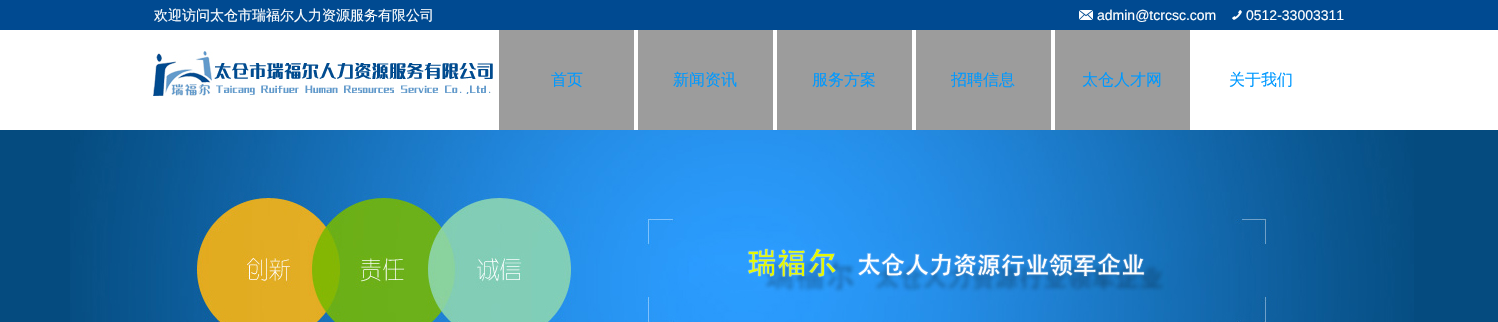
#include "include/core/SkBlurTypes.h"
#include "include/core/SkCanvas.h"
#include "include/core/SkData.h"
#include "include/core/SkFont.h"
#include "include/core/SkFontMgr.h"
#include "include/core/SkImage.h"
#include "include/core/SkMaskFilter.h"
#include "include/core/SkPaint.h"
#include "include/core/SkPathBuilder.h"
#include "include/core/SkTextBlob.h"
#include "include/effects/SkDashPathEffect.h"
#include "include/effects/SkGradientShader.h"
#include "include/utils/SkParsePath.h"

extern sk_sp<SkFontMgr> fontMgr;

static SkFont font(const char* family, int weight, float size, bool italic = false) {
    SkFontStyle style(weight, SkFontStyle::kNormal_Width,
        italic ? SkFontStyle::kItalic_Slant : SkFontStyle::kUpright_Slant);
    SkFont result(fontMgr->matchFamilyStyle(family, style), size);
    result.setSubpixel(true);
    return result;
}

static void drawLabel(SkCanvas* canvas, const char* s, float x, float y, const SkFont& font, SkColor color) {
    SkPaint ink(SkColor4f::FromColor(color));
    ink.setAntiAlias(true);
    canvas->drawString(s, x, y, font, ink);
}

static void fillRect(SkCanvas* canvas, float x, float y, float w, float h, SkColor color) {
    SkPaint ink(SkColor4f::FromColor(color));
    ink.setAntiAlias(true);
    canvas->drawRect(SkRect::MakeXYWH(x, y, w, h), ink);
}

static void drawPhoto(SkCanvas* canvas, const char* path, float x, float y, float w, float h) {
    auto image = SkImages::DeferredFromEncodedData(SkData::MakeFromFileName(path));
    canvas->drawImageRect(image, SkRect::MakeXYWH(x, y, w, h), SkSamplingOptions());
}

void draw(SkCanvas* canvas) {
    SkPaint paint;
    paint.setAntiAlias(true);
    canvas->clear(0xFFFFFFFF);
    fillRect(canvas, 0, 0, 1498, 30, 0xFF004A91);
    SkFont font1 = font("WenQuanYi Zen Hei", 500, 14);
    drawLabel(canvas, "欢迎访问太仓市瑞福尔人力资源服务有限公司", 154, 20, font1, 0xFFFFFFFF);
    drawPhoto(canvas, "assets/img1.png", 1079, 10, 14, 10);
    SkFont font2 = font("Liberation Sans", 400, 14);
    drawLabel(canvas, "admin@tcrcsc.com", 1097, 20, font2, 0xFFFFFFFF);
    drawPhoto(canvas, "assets/img2.png", 1232, 10, 10, 10);
    drawLabel(canvas, "0512-33003311", 1246, 20, font2, 0xFFFFFFFF);
    drawPhoto(canvas, "assets/img3.png", 151, 51, 342, 47);
    fillRect(canvas, 499, 30, 135, 100, 0xFF9C9C9C);
    SkFont font3 = font("WenQuanYi Zen Hei", 500, 16);
    drawLabel(canvas, "首页", 551, 85, font3, 0xFF0099FF);
    fillRect(canvas, 638, 30, 135, 100, 0xFF9C9C9C);
    drawLabel(canvas, "新闻资讯", 673, 85, font3, 0xFF0099FF);
    fillRect(canvas, 777, 30, 135, 100, 0xFF9C9C9C);
    drawLabel(canvas, "服务方案", 812, 85, font3, 0xFF0099FF);
    fillRect(canvas, 916, 30, 135, 100, 0xFF9C9C9C);
    drawLabel(canvas, "招聘信息", 951, 85, font3, 0xFF0099FF);
    fillRect(canvas, 1055, 30, 135, 100, 0xFF9C9C9C);
    drawLabel(canvas, "太仓人才网", 1082, 85, font3, 0xFF0099FF);
    drawLabel(canvas, "关于我们", 1229, 85, font3, 0xFF0099FF);
    fillRect(canvas, 0, 130, 1498, 192, 0xFF054B7F);
    drawPhoto(canvas, "assets/img4.png", 70, 130, 1344, 192);
}
